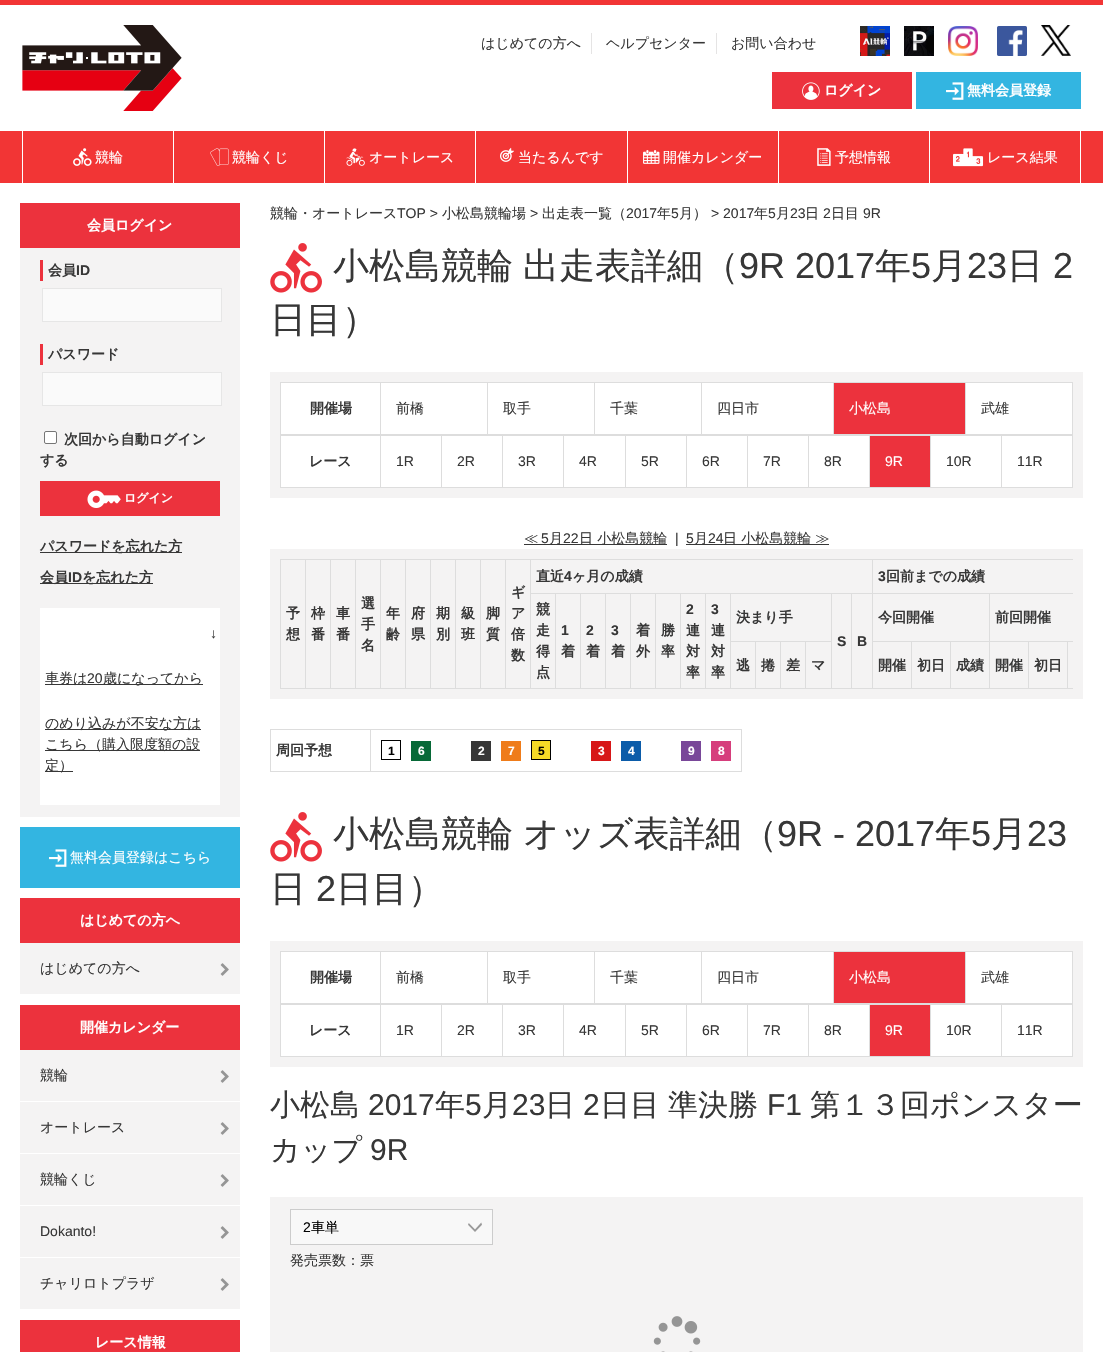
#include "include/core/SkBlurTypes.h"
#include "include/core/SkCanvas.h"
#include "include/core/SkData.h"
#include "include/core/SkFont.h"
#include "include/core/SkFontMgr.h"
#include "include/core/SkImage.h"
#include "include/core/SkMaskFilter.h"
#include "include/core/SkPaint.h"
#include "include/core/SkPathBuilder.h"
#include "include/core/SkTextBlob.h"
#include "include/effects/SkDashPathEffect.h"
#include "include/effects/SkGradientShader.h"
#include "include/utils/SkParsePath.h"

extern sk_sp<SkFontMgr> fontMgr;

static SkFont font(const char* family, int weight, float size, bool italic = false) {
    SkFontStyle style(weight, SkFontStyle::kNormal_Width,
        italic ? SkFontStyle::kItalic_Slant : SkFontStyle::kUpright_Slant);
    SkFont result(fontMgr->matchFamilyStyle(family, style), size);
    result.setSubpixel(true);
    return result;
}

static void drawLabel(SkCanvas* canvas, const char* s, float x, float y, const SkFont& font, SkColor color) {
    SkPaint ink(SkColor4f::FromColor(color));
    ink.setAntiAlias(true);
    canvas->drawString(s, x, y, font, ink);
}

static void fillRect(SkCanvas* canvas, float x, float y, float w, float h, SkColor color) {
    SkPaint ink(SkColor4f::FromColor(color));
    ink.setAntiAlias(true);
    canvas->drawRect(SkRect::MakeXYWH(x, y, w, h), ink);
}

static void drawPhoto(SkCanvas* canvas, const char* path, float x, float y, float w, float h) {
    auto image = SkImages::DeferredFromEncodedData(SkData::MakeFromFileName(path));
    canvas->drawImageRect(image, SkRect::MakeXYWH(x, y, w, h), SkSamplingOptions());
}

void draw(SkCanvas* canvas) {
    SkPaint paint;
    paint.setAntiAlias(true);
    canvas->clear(0xFFFFFFFF);
    fillRect(canvas, 0, 0, 1103, 5, 0xFFF23535);
    drawPhoto(canvas, "assets/img1.png", 22, 25, 160, 86);
    fillRect(canvas, 591, 33, 1, 21, 0xFFE5E4E4);
    SkFont font1 = font("WenQuanYi Zen Hei", 500, 14);
    drawLabel(canvas, "はじめての方へ", 481, 48, font1, 0xFF373737);
    fillRect(canvas, 716, 33, 1, 21, 0xFFE5E4E4);
    drawLabel(canvas, "ヘルプセンター", 606, 48, font1, 0xFF373737);
    drawLabel(canvas, "お問い合わせ", 731, 48, font1, 0xFF373737);
    drawPhoto(canvas, "assets/img2.png", 860, 26, 30, 30);
    drawPhoto(canvas, "assets/img3.png", 904, 26, 30, 30);
    drawPhoto(canvas, "assets/img4.png", 948, 26, 30, 30);
    drawPhoto(canvas, "assets/img5.png", 997, 26, 30, 30);
    drawPhoto(canvas, "assets/img6.png", 1041, 25, 30, 31);
    fillRect(canvas, 772, 72, 140, 37, 0xFFEC323D);
    drawPhoto(canvas, "assets/img7.png", 802, 82, 18, 18);
    SkFont font2 = font("WenQuanYi Zen Hei", 700, 14);
    drawLabel(canvas, "ログイン", 824, 95, font2, 0xFFFFFFFF);
    fillRect(canvas, 916, 72, 165, 37, 0xFF33B5E1);
    drawPhoto(canvas, "assets/img8.png", 946, 82, 18, 18);
    drawLabel(canvas, "無料会員登録", 967, 95, font2, 0xFFFFFFFF);
    fillRect(canvas, 0, 131, 1103, 52, 0xFFF23535);
    fillRect(canvas, 22, 131, 1, 52, 0xFFFFFFFF);
    drawPhoto(canvas, "assets/img9.png", 73, 148, 19, 18);
    drawLabel(canvas, "競輪", 95, 162, font1, 0xFFFFFFFF);
    fillRect(canvas, 173, 131, 1, 52, 0xFFFFFFFF);
    drawPhoto(canvas, "assets/img10.png", 210, 148, 19, 18);
    drawLabel(canvas, "競輪くじ", 232, 162, font1, 0xFFFFFFFF);
    fillRect(canvas, 324, 131, 1, 52, 0xFFFFFFFF);
    drawPhoto(canvas, "assets/img11.png", 346, 148, 19, 18);
    drawLabel(canvas, "オートレース", 369, 162, font1, 0xFFFFFFFF);
    fillRect(canvas, 475, 131, 1, 52, 0xFFFFFFFF);
    drawPhoto(canvas, "assets/img12.png", 500, 147, 14, 15);
    drawLabel(canvas, "当たるんです", 518, 162, font1, 0xFFFFFFFF);
    fillRect(canvas, 627, 131, 1, 52, 0xFFFFFFFF);
    drawPhoto(canvas, "assets/img13.png", 643, 150, 17, 14);
    drawLabel(canvas, "開催カレンダー", 663, 162, font1, 0xFFFFFFFF);
    fillRect(canvas, 778, 131, 1, 52, 0xFFFFFFFF);
    drawPhoto(canvas, "assets/img14.png", 817, 148, 14, 18);
    drawLabel(canvas, "予想情報", 835, 162, font1, 0xFFFFFFFF);
    fillRect(canvas, 1080, 131, 1, 52, 0xFFFFFFFF);
    fillRect(canvas, 929, 131, 1, 52, 0xFFFFFFFF);
    drawPhoto(canvas, "assets/img15.png", 953, 148, 31, 19);
    drawLabel(canvas, "レース結果", 987, 162, font1, 0xFFFFFFFF);
    fillRect(canvas, 20, 203, 220, 45, 0xFFEC323D);
    drawLabel(canvas, "会員ログイン", 87, 230, font2, 0xFFFFFFFF);
    fillRect(canvas, 20, 248, 220, 569, 0xFFF4F3F3);
    fillRect(canvas, 40, 260, 3, 21, 0xFFEC323D);
    drawLabel(canvas, "会員", 48, 275, font2, 0xFF373737);
    SkFont font3 = font("Liberation Sans", 700, 14);
    drawLabel(canvas, "ID", 76, 275, font3, 0xFF373737);
    paint.setColor(0xFFFAFAFA);
    canvas->drawRect(SkRect::MakeXYWH(42.5f, 288.5f, 179, 33), paint);
    paint.setStroke(true);
    paint.setStrokeWidth(1);
    paint.setColor(0xFFE6E6E6);
    canvas->drawRect(SkRect::MakeXYWH(42.5f, 288.5f, 179, 33), paint);
    fillRect(canvas, 40, 344, 3, 21, 0xFFEC323D);
    drawLabel(canvas, "パスワード", 48, 359, font2, 0xFF373737);
    paint.setStroke(false);
    paint.setColor(0xFFFAFAFA);
    canvas->drawRect(SkRect::MakeXYWH(42.5f, 372.5f, 179, 33), paint);
    paint.setStroke(true);
    paint.setColor(0xFFE6E6E6);
    canvas->drawRect(SkRect::MakeXYWH(42.5f, 372.5f, 179, 33), paint);
    paint.setStroke(false);
    paint.setColor(0xFFFFFFFF);
    canvas->drawRoundRect(SkRect::MakeXYWH(44.5f, 431.5f, 12, 12), 1.5f, 1.5f, paint);
    paint.setStroke(true);
    paint.setColor(0xFF767676);
    canvas->drawRoundRect(SkRect::MakeXYWH(44.5f, 431.5f, 12, 12), 1.5f, 1.5f, paint);
    drawLabel(canvas, "次回から自動ログイン", 64, 444, font2, 0xFF373737);
    drawLabel(canvas, "する", 40, 465, font2, 0xFF373737);
    fillRect(canvas, 40, 481, 180, 35, 0xFFEC323D);
    drawPhoto(canvas, "assets/img16.png", 87, 490, 34, 18);
    SkFont font4 = font("WenQuanYi Zen Hei", 700, 12);
    drawLabel(canvas, "ログイン", 124, 502, font4, 0xFFFFFFFF);
    fillRect(canvas, 40, 552, 142, 1, 0xFF373737);
    drawLabel(canvas, "パスワードを忘れた方", 40, 551, font2, 0xFF373737);
    fillRect(canvas, 40, 583, 113, 1, 0xFF373737);
    drawLabel(canvas, "会員", 40, 582, font2, 0xFF373737);
    drawLabel(canvas, "ID", 68, 582, font3, 0xFF373737);
    drawLabel(canvas, "を忘れた方", 82, 582, font2, 0xFF373737);
    fillRect(canvas, 40, 608, 180, 197, 0xFFFFFFFF);
    SkFont font5 = font("Liberation Sans", 400, 14);
    drawLabel(canvas, "↓", 210, 638, font5, 0xFF373737);
    fillRect(canvas, 45, 684, 158, 1, 0xFF373737);
    drawLabel(canvas, "車券は", 45, 683, font1, 0xFF373737);
    drawLabel(canvas, "20", 87, 683, font5, 0xFF373737);
    drawLabel(canvas, "歳になってから", 103, 683, font1, 0xFF373737);
    fillRect(canvas, 45, 729, 156, 1, 0xFF373737);
    drawLabel(canvas, "のめり込みが不安な方は", 45, 728, font1, 0xFF373737);
    fillRect(canvas, 45, 750, 155, 1, 0xFF373737);
    drawLabel(canvas, "こちら（購入限度額の設", 45, 749, font1, 0xFF373737);
    fillRect(canvas, 45, 771, 28, 1, 0xFF373737);
    drawLabel(canvas, "定）", 45, 770, font1, 0xFF373737);
    fillRect(canvas, 20, 827, 220, 61, 0xFF33B5E1);
    drawPhoto(canvas, "assets/img8.png", 49, 849, 18, 18);
    drawLabel(canvas, "無料会員登録はこちら", 70, 862, font1, 0xFFFFFFFF);
    fillRect(canvas, 20, 898, 220, 45, 0xFFEC323D);
    drawLabel(canvas, "はじめての方へ", 80, 925, font2, 0xFFFFFFFF);
    fillRect(canvas, 20, 943, 220, 51, 0xFFF4F3F3);
    drawLabel(canvas, "はじめての方へ", 40, 973, font1, 0xFF373737);
    drawPhoto(canvas, "assets/img17.png", 220, 963, 9, 13);
    fillRect(canvas, 20, 1005, 220, 45, 0xFFEC323D);
    drawLabel(canvas, "開催カレンダー", 80, 1032, font2, 0xFFFFFFFF);
    fillRect(canvas, 20, 1050, 220, 51, 0xFFF4F3F3);
    drawLabel(canvas, "競輪", 40, 1080, font1, 0xFF373737);
    drawPhoto(canvas, "assets/img17.png", 220, 1070, 9, 13);
    fillRect(canvas, 20, 1102, 220, 51, 0xFFF4F3F3);
    drawLabel(canvas, "オートレース", 40, 1132, font1, 0xFF373737);
    drawPhoto(canvas, "assets/img17.png", 220, 1122, 9, 13);
    fillRect(canvas, 20, 1154, 220, 51, 0xFFF4F3F3);
    drawLabel(canvas, "競輪くじ", 40, 1184, font1, 0xFF373737);
    drawPhoto(canvas, "assets/img17.png", 220, 1174, 9, 13);
    fillRect(canvas, 20, 1206, 220, 51, 0xFFF4F3F3);
    drawLabel(canvas, "Dokanto!", 40, 1236, font5, 0xFF373737);
    drawPhoto(canvas, "assets/img17.png", 220, 1226, 9, 13);
    fillRect(canvas, 20, 1258, 220, 51, 0xFFF4F3F3);
    drawLabel(canvas, "チャリロトプラザ", 40, 1288, font1, 0xFF373737);
    drawPhoto(canvas, "assets/img17.png", 220, 1278, 9, 13);
    fillRect(canvas, 20, 1320, 220, 32, 0xFFEC323D);
    drawLabel(canvas, "レース情報", 95, 1347, font2, 0xFFFFFFFF);
    drawLabel(canvas, "競輪・オートレース", 270, 218, font1, 0xFF373737);
    drawLabel(canvas, "TOP >", 397, 218, font5, 0xFF373737);
    drawLabel(canvas, "小松島競輪場", 442, 218, font1, 0xFF373737);
    drawLabel(canvas, ">", 530, 218, font5, 0xFF373737);
    drawLabel(canvas, "出走表一覧（", 542, 218, font1, 0xFF373737);
    drawLabel(canvas, "2017", 626, 218, font5, 0xFF373737);
    drawLabel(canvas, "年", 657, 218, font1, 0xFF373737);
    drawLabel(canvas, "5", 671, 218, font5, 0xFF373737);
    drawLabel(canvas, "月）", 679, 218, font1, 0xFF373737);
    drawLabel(canvas, "> 2017", 711, 218, font5, 0xFF373737);
    drawLabel(canvas, "年", 754, 218, font1, 0xFF373737);
    drawLabel(canvas, "5", 768, 218, font5, 0xFF373737);
    drawLabel(canvas, "月", 776, 218, font1, 0xFF373737);
    drawLabel(canvas, "23", 790, 218, font5, 0xFF373737);
    drawLabel(canvas, "日", 805, 218, font1, 0xFF373737);
    drawLabel(canvas, "2", 823, 218, font5, 0xFF373737);
    drawLabel(canvas, "日目", 831, 218, font1, 0xFF373737);
    drawLabel(canvas, "9R", 863, 218, font5, 0xFF373737);
    drawPhoto(canvas, "assets/img18.png", 270, 243, 52, 50);
    SkFont font6 = font("WenQuanYi Zen Hei", 500, 36);
    drawLabel(canvas, "小松島競輪", 333, 278, font6, 0xFF373737);
    drawLabel(canvas, "出走表詳細（", 523, 278, font6, 0xFF373737);
    SkFont font7 = font("Liberation Sans", 400, 36);
    drawLabel(canvas, "9R 2017", 739, 278, font7, 0xFF373737);
    drawLabel(canvas, "年", 875, 278, font6, 0xFF373737);
    drawLabel(canvas, "5", 911, 278, font7, 0xFF373737);
    drawLabel(canvas, "月", 931, 278, font6, 0xFF373737);
    drawLabel(canvas, "23", 967, 278, font7, 0xFF373737);
    drawLabel(canvas, "日", 1007, 278, font6, 0xFF373737);
    drawLabel(canvas, "2", 1053, 278, font7, 0xFF373737);
    drawLabel(canvas, "日目）", 270, 332, font6, 0xFF373737);
    fillRect(canvas, 270, 372, 813, 126, 0xFFF4F3F3);
    fillRect(canvas, 281, 383, 791, 51, 0xFFFFFFFF);
    fillRect(canvas, 280, 382, 793, 1, 0xFFDDDDDD);
    fillRect(canvas, 1072, 382, 1, 53, 0xFFDDDDDD);
    fillRect(canvas, 280, 434, 793, 2, 0xFFDDDDDD);
    fillRect(canvas, 280, 382, 1, 53, 0xFFDDDDDD);
    drawLabel(canvas, "開催場", 310, 413, font2, 0xFF373737);
    fillRect(canvas, 380, 382, 1, 53, 0xFFDDDDDD);
    drawLabel(canvas, "前橋", 396, 413, font1, 0xFF373737);
    fillRect(canvas, 487, 382, 1, 53, 0xFFDDDDDD);
    drawLabel(canvas, "取手", 503, 413, font1, 0xFF373737);
    fillRect(canvas, 594, 382, 1, 53, 0xFFDDDDDD);
    drawLabel(canvas, "千葉", 610, 413, font1, 0xFF373737);
    fillRect(canvas, 701, 382, 1, 53, 0xFFDDDDDD);
    drawLabel(canvas, "四日市", 717, 413, font1, 0xFF373737);
    fillRect(canvas, 833, 382, 1, 53, 0xFFDDDDDD);
    fillRect(canvas, 834, 383, 131, 51, 0xFFEC323D);
    drawLabel(canvas, "小松島", 849, 413, font1, 0xFFFFFFFF);
    fillRect(canvas, 965, 382, 1, 53, 0xFFDDDDDD);
    drawLabel(canvas, "武雄", 981, 413, font1, 0xFF373737);
    fillRect(canvas, 281, 436, 791, 51, 0xFFFFFFFF);
    fillRect(canvas, 1072, 435, 1, 53, 0xFFDDDDDD);
    fillRect(canvas, 280, 487, 793, 1, 0xFFDDDDDD);
    fillRect(canvas, 280, 435, 1, 53, 0xFFDDDDDD);
    drawLabel(canvas, "レース", 309, 466, font2, 0xFF373737);
    fillRect(canvas, 380, 435, 1, 53, 0xFFDDDDDD);
    drawLabel(canvas, "1R", 396, 466, font5, 0xFF373737);
    fillRect(canvas, 441, 435, 1, 53, 0xFFDDDDDD);
    drawLabel(canvas, "2R", 457, 466, font5, 0xFF373737);
    fillRect(canvas, 502, 435, 1, 53, 0xFFDDDDDD);
    drawLabel(canvas, "3R", 518, 466, font5, 0xFF373737);
    fillRect(canvas, 563, 435, 1, 53, 0xFFDDDDDD);
    drawLabel(canvas, "4R", 579, 466, font5, 0xFF373737);
    fillRect(canvas, 625, 435, 1, 53, 0xFFDDDDDD);
    drawLabel(canvas, "5R", 641, 466, font5, 0xFF373737);
    fillRect(canvas, 686, 435, 1, 53, 0xFFDDDDDD);
    drawLabel(canvas, "6R", 702, 466, font5, 0xFF373737);
    fillRect(canvas, 747, 435, 1, 53, 0xFFDDDDDD);
    drawLabel(canvas, "7R", 763, 466, font5, 0xFF373737);
    fillRect(canvas, 808, 435, 1, 53, 0xFFDDDDDD);
    drawLabel(canvas, "8R", 824, 466, font5, 0xFF373737);
    fillRect(canvas, 869, 435, 1, 53, 0xFFDDDDDD);
    fillRect(canvas, 870, 436, 60, 51, 0xFFEC323D);
    drawLabel(canvas, "9R", 885, 466, font5, 0xFFFFFFFF);
    fillRect(canvas, 930, 435, 1, 53, 0xFFDDDDDD);
    drawLabel(canvas, "10R", 946, 466, font5, 0xFF373737);
    fillRect(canvas, 1001, 435, 1, 53, 0xFFDDDDDD);
    drawLabel(canvas, "11R", 1017, 466, font5, 0xFF373737);
    drawLabel(canvas, "≪", 524, 543, font1, 0xFF373737);
    fillRect(canvas, 524, 544, 143, 1, 0xFF373737);
    drawLabel(canvas, "5", 541, 543, font5, 0xFF373737);
    drawLabel(canvas, "月", 549, 543, font1, 0xFF373737);
    drawLabel(canvas, "22", 563, 543, font5, 0xFF373737);
    drawLabel(canvas, "日 小松島競輪", 579, 543, font1, 0xFF373737);
    drawLabel(canvas, "|", 675, 543, font5, 0xFF373737);
    drawLabel(canvas, "5", 686, 543, font5, 0xFF373737);
    fillRect(canvas, 686, 544, 143, 1, 0xFF373737);
    drawLabel(canvas, "月", 694, 543, font1, 0xFF373737);
    drawLabel(canvas, "24", 708, 543, font5, 0xFF373737);
    drawLabel(canvas, "日 小松島競輪 ≫", 723, 543, font1, 0xFF373737);
    fillRect(canvas, 270, 549, 813, 150, 0xFFF4F3F3);
    fillRect(canvas, 280, 559, 793, 1, 0xFFDDDDDD);
    fillRect(canvas, 280, 688, 793, 1, 0xFFDDDDDD);
    fillRect(canvas, 280, 559, 1, 130, 0xFFDDDDDD);
    drawLabel(canvas, "直近", 536, 581, font2, 0xFF373737);
    drawLabel(canvas, "4", 564, 581, font3, 0xFF373737);
    drawLabel(canvas, "ヶ月の成績", 572, 581, font2, 0xFF373737);
    fillRect(canvas, 989, 593, 84, 1, 0xFFDDDDDD);
    fillRect(canvas, 1067, 641, 6, 1, 0xFFDDDDDD);
    fillRect(canvas, 1067, 641, 1, 48, 0xFFDDDDDD);
    fillRect(canvas, 1028, 641, 40, 1, 0xFFDDDDDD);
    fillRect(canvas, 1028, 641, 1, 48, 0xFFDDDDDD);
    fillRect(canvas, 989, 641, 40, 1, 0xFFDDDDDD);
    fillRect(canvas, 989, 641, 1, 48, 0xFFDDDDDD);
    fillRect(canvas, 950, 641, 40, 1, 0xFFDDDDDD);
    fillRect(canvas, 989, 593, 1, 49, 0xFFDDDDDD);
    fillRect(canvas, 872, 593, 118, 1, 0xFFDDDDDD);
    fillRect(canvas, 950, 641, 1, 48, 0xFFDDDDDD);
    fillRect(canvas, 911, 641, 40, 1, 0xFFDDDDDD);
    fillRect(canvas, 911, 641, 1, 48, 0xFFDDDDDD);
    fillRect(canvas, 872, 641, 40, 1, 0xFFDDDDDD);
    fillRect(canvas, 872, 641, 1, 48, 0xFFDDDDDD);
    fillRect(canvas, 872, 593, 1, 49, 0xFFDDDDDD);
    fillRect(canvas, 851, 593, 22, 1, 0xFFDDDDDD);
    fillRect(canvas, 872, 559, 1, 35, 0xFFDDDDDD);
    drawLabel(canvas, "3", 878, 581, font3, 0xFF373737);
    drawLabel(canvas, "回前までの成績", 886, 581, font2, 0xFF373737);
    drawLabel(canvas, "予", 286, 618, font2, 0xFF373737);
    drawLabel(canvas, "想", 286, 639, font2, 0xFF373737);
    fillRect(canvas, 305, 559, 1, 130, 0xFFDDDDDD);
    drawLabel(canvas, "枠", 311, 618, font2, 0xFF373737);
    drawLabel(canvas, "番", 311, 639, font2, 0xFF373737);
    fillRect(canvas, 330, 559, 1, 130, 0xFFDDDDDD);
    drawLabel(canvas, "車", 336, 618, font2, 0xFF373737);
    drawLabel(canvas, "番", 336, 639, font2, 0xFF373737);
    fillRect(canvas, 355, 559, 1, 130, 0xFFDDDDDD);
    drawLabel(canvas, "選", 361, 608, font2, 0xFF373737);
    drawLabel(canvas, "手", 361, 629, font2, 0xFF373737);
    drawLabel(canvas, "名", 361, 650, font2, 0xFF373737);
    fillRect(canvas, 380, 559, 1, 130, 0xFFDDDDDD);
    drawLabel(canvas, "年", 386, 618, font2, 0xFF373737);
    drawLabel(canvas, "齢", 386, 639, font2, 0xFF373737);
    fillRect(canvas, 405, 559, 1, 130, 0xFFDDDDDD);
    drawLabel(canvas, "府", 411, 618, font2, 0xFF373737);
    drawLabel(canvas, "県", 411, 639, font2, 0xFF373737);
    fillRect(canvas, 430, 559, 1, 130, 0xFFDDDDDD);
    drawLabel(canvas, "期", 436, 618, font2, 0xFF373737);
    drawLabel(canvas, "別", 436, 639, font2, 0xFF373737);
    fillRect(canvas, 455, 559, 1, 130, 0xFFDDDDDD);
    drawLabel(canvas, "級", 461, 618, font2, 0xFF373737);
    drawLabel(canvas, "班", 461, 639, font2, 0xFF373737);
    fillRect(canvas, 480, 559, 1, 130, 0xFFDDDDDD);
    drawLabel(canvas, "脚", 486, 618, font2, 0xFF373737);
    drawLabel(canvas, "質", 486, 639, font2, 0xFF373737);
    fillRect(canvas, 505, 559, 1, 130, 0xFFDDDDDD);
    drawLabel(canvas, "ギ", 511, 597, font2, 0xFF373737);
    drawLabel(canvas, "ア", 511, 618, font2, 0xFF373737);
    drawLabel(canvas, "倍", 511, 639, font2, 0xFF373737);
    drawLabel(canvas, "数", 511, 660, font2, 0xFF373737);
    fillRect(canvas, 851, 593, 1, 96, 0xFFDDDDDD);
    fillRect(canvas, 831, 593, 21, 1, 0xFFDDDDDD);
    fillRect(canvas, 805, 641, 27, 1, 0xFFDDDDDD);
    fillRect(canvas, 831, 593, 1, 96, 0xFFDDDDDD);
    fillRect(canvas, 730, 593, 102, 1, 0xFFDDDDDD);
    fillRect(canvas, 805, 641, 1, 48, 0xFFDDDDDD);
    fillRect(canvas, 780, 641, 26, 1, 0xFFDDDDDD);
    fillRect(canvas, 780, 641, 1, 48, 0xFFDDDDDD);
    fillRect(canvas, 755, 641, 26, 1, 0xFFDDDDDD);
    fillRect(canvas, 755, 641, 1, 48, 0xFFDDDDDD);
    fillRect(canvas, 730, 641, 26, 1, 0xFFDDDDDD);
    fillRect(canvas, 730, 641, 1, 48, 0xFFDDDDDD);
    fillRect(canvas, 730, 593, 1, 49, 0xFFDDDDDD);
    fillRect(canvas, 705, 593, 26, 1, 0xFFDDDDDD);
    fillRect(canvas, 705, 593, 1, 96, 0xFFDDDDDD);
    fillRect(canvas, 680, 593, 26, 1, 0xFFDDDDDD);
    fillRect(canvas, 680, 593, 1, 96, 0xFFDDDDDD);
    fillRect(canvas, 655, 593, 26, 1, 0xFFDDDDDD);
    fillRect(canvas, 655, 593, 1, 96, 0xFFDDDDDD);
    fillRect(canvas, 630, 593, 26, 1, 0xFFDDDDDD);
    fillRect(canvas, 630, 593, 1, 96, 0xFFDDDDDD);
    fillRect(canvas, 605, 593, 26, 1, 0xFFDDDDDD);
    fillRect(canvas, 605, 593, 1, 96, 0xFFDDDDDD);
    fillRect(canvas, 580, 593, 26, 1, 0xFFDDDDDD);
    fillRect(canvas, 580, 593, 1, 96, 0xFFDDDDDD);
    fillRect(canvas, 555, 593, 26, 1, 0xFFDDDDDD);
    fillRect(canvas, 555, 593, 1, 96, 0xFFDDDDDD);
    fillRect(canvas, 530, 593, 26, 1, 0xFFDDDDDD);
    fillRect(canvas, 530, 559, 1, 130, 0xFFDDDDDD);
    drawLabel(canvas, "競", 536, 614, font2, 0xFF373737);
    drawLabel(canvas, "走", 536, 635, font2, 0xFF373737);
    drawLabel(canvas, "得", 536, 656, font2, 0xFF373737);
    drawLabel(canvas, "点", 536, 677, font2, 0xFF373737);
    drawLabel(canvas, "2", 686, 614, font3, 0xFF373737);
    drawLabel(canvas, "連", 686, 635, font2, 0xFF373737);
    drawLabel(canvas, "対", 686, 656, font2, 0xFF373737);
    drawLabel(canvas, "率", 686, 677, font2, 0xFF373737);
    drawLabel(canvas, "3", 711, 614, font3, 0xFF373737);
    drawLabel(canvas, "連", 711, 635, font2, 0xFF373737);
    drawLabel(canvas, "対", 711, 656, font2, 0xFF373737);
    drawLabel(canvas, "率", 711, 677, font2, 0xFF373737);
    drawLabel(canvas, "決まり手", 736, 622, font2, 0xFF373737);
    drawLabel(canvas, "今回開催", 878, 622, font2, 0xFF373737);
    drawLabel(canvas, "前回開催", 995, 622, font2, 0xFF373737);
    drawLabel(canvas, "1", 561, 635, font3, 0xFF373737);
    drawLabel(canvas, "着", 561, 656, font2, 0xFF373737);
    drawLabel(canvas, "2", 586, 635, font3, 0xFF373737);
    drawLabel(canvas, "着", 586, 656, font2, 0xFF373737);
    drawLabel(canvas, "3", 611, 635, font3, 0xFF373737);
    drawLabel(canvas, "着", 611, 656, font2, 0xFF373737);
    drawLabel(canvas, "着", 636, 635, font2, 0xFF373737);
    drawLabel(canvas, "外", 636, 656, font2, 0xFF373737);
    drawLabel(canvas, "勝", 661, 635, font2, 0xFF373737);
    drawLabel(canvas, "率", 661, 656, font2, 0xFF373737);
    drawLabel(canvas, "S", 837, 646, font3, 0xFF373737);
    drawLabel(canvas, "B", 857, 646, font3, 0xFF373737);
    drawLabel(canvas, "逃", 736, 670, font2, 0xFF373737);
    drawLabel(canvas, "捲", 761, 670, font2, 0xFF373737);
    drawLabel(canvas, "差", 786, 670, font2, 0xFF373737);
    drawLabel(canvas, "マ", 811, 670, font2, 0xFF373737);
    drawLabel(canvas, "開催", 878, 670, font2, 0xFF373737);
    drawLabel(canvas, "初日", 917, 670, font2, 0xFF373737);
    drawLabel(canvas, "成績", 956, 670, font2, 0xFF373737);
    drawLabel(canvas, "開催", 995, 670, font2, 0xFF373737);
    drawLabel(canvas, "初日", 1034, 670, font2, 0xFF373737);
    fillRect(canvas, 270, 729, 472, 1, 0xFFDDDDDD);
    fillRect(canvas, 741, 729, 1, 43, 0xFFDDDDDD);
    fillRect(canvas, 270, 771, 472, 1, 0xFFDDDDDD);
    fillRect(canvas, 270, 729, 1, 43, 0xFFDDDDDD);
    drawLabel(canvas, "周回予想", 276, 755, font2, 0xFF373737);
    fillRect(canvas, 370, 729, 1, 43, 0xFFDDDDDD);
    paint.setColor(0xFF000000);
    canvas->drawRect(SkRect::MakeXYWH(381.5f, 740.5f, 19, 19), paint);
    SkFont font8 = font("Liberation Sans", 700, 12);
    drawLabel(canvas, "1", 388, 755, font8, 0xFF000000);
    fillRect(canvas, 411, 741, 20, 20, 0xFF076937);
    drawLabel(canvas, "6", 418, 755, font8, 0xFFFFFFFF);
    fillRect(canvas, 471, 741, 20, 20, 0xFF373737);
    drawLabel(canvas, "2", 478, 755, font8, 0xFFFFFFFF);
    fillRect(canvas, 501, 741, 20, 20, 0xFFEF7C1A);
    drawLabel(canvas, "7", 508, 755, font8, 0xFFFFFFFF);
    paint.setStroke(false);
    paint.setColor(0xFFF5DA27);
    canvas->drawRect(SkRect::MakeXYWH(531.5f, 740.5f, 19, 19), paint);
    paint.setStroke(true);
    paint.setColor(0xFF000000);
    canvas->drawRect(SkRect::MakeXYWH(531.5f, 740.5f, 19, 19), paint);
    drawLabel(canvas, "5", 538, 755, font8, 0xFF000000);
    fillRect(canvas, 591, 741, 20, 20, 0xFFD71718);
    drawLabel(canvas, "3", 598, 755, font8, 0xFFFFFFFF);
    fillRect(canvas, 621, 741, 20, 20, 0xFF0B5CA9);
    drawLabel(canvas, "4", 628, 755, font8, 0xFFFFFFFF);
    fillRect(canvas, 681, 741, 20, 20, 0xFF794799);
    drawLabel(canvas, "9", 688, 755, font8, 0xFFFFFFFF);
    fillRect(canvas, 711, 741, 20, 20, 0xFFD63E7C);
    drawLabel(canvas, "8", 718, 755, font8, 0xFFFFFFFF);
    drawPhoto(canvas, "assets/img18.png", 270, 812, 52, 50);
    drawLabel(canvas, "小松島競輪", 333, 846, font6, 0xFF373737);
    drawLabel(canvas, "オッズ表詳細（", 523, 846, font6, 0xFF373737);
    drawLabel(canvas, "9R - 2017", 777, 846, font7, 0xFF373737);
    drawLabel(canvas, "年", 935, 846, font6, 0xFF373737);
    drawLabel(canvas, "5", 971, 846, font7, 0xFF373737);
    drawLabel(canvas, "月", 991, 846, font6, 0xFF373737);
    drawLabel(canvas, "23", 1027, 846, font7, 0xFF373737);
    drawLabel(canvas, "日", 270, 901, font6, 0xFF373737);
    drawLabel(canvas, "2", 316, 901, font7, 0xFF373737);
    drawLabel(canvas, "日目）", 336, 901, font6, 0xFF373737);
    fillRect(canvas, 270, 941, 813, 126, 0xFFF4F3F3);
    fillRect(canvas, 281, 952, 791, 51, 0xFFFFFFFF);
    fillRect(canvas, 280, 951, 793, 1, 0xFFDDDDDD);
    fillRect(canvas, 1072, 951, 1, 53, 0xFFDDDDDD);
    fillRect(canvas, 280, 1003, 793, 2, 0xFFDDDDDD);
    fillRect(canvas, 280, 951, 1, 53, 0xFFDDDDDD);
    drawLabel(canvas, "開催場", 310, 982, font2, 0xFF373737);
    fillRect(canvas, 380, 951, 1, 53, 0xFFDDDDDD);
    drawLabel(canvas, "前橋", 396, 982, font1, 0xFF373737);
    fillRect(canvas, 487, 951, 1, 53, 0xFFDDDDDD);
    drawLabel(canvas, "取手", 503, 982, font1, 0xFF373737);
    fillRect(canvas, 594, 951, 1, 53, 0xFFDDDDDD);
    drawLabel(canvas, "千葉", 610, 982, font1, 0xFF373737);
    fillRect(canvas, 701, 951, 1, 53, 0xFFDDDDDD);
    drawLabel(canvas, "四日市", 717, 982, font1, 0xFF373737);
    fillRect(canvas, 833, 951, 1, 53, 0xFFDDDDDD);
    fillRect(canvas, 834, 952, 131, 51, 0xFFEC323D);
    drawLabel(canvas, "小松島", 849, 982, font1, 0xFFFFFFFF);
    fillRect(canvas, 965, 951, 1, 53, 0xFFDDDDDD);
    drawLabel(canvas, "武雄", 981, 982, font1, 0xFF373737);
    fillRect(canvas, 281, 1005, 791, 51, 0xFFFFFFFF);
    fillRect(canvas, 1072, 1004, 1, 53, 0xFFDDDDDD);
    fillRect(canvas, 280, 1056, 793, 1, 0xFFDDDDDD);
    fillRect(canvas, 280, 1004, 1, 53, 0xFFDDDDDD);
    drawLabel(canvas, "レース", 309, 1035, font2, 0xFF373737);
    fillRect(canvas, 380, 1004, 1, 53, 0xFFDDDDDD);
    drawLabel(canvas, "1R", 396, 1035, font5, 0xFF373737);
    fillRect(canvas, 441, 1004, 1, 53, 0xFFDDDDDD);
    drawLabel(canvas, "2R", 457, 1035, font5, 0xFF373737);
    fillRect(canvas, 502, 1004, 1, 53, 0xFFDDDDDD);
    drawLabel(canvas, "3R", 518, 1035, font5, 0xFF373737);
    fillRect(canvas, 563, 1004, 1, 53, 0xFFDDDDDD);
    drawLabel(canvas, "4R", 579, 1035, font5, 0xFF373737);
    fillRect(canvas, 625, 1004, 1, 53, 0xFFDDDDDD);
    drawLabel(canvas, "5R", 641, 1035, font5, 0xFF373737);
    fillRect(canvas, 686, 1004, 1, 53, 0xFFDDDDDD);
    drawLabel(canvas, "6R", 702, 1035, font5, 0xFF373737);
    fillRect(canvas, 747, 1004, 1, 53, 0xFFDDDDDD);
    drawLabel(canvas, "7R", 763, 1035, font5, 0xFF373737);
    fillRect(canvas, 808, 1004, 1, 53, 0xFFDDDDDD);
    drawLabel(canvas, "8R", 824, 1035, font5, 0xFF373737);
    fillRect(canvas, 869, 1004, 1, 53, 0xFFDDDDDD);
    fillRect(canvas, 870, 1005, 60, 51, 0xFFEC323D);
    drawLabel(canvas, "9R", 885, 1035, font5, 0xFFFFFFFF);
    fillRect(canvas, 930, 1004, 1, 53, 0xFFDDDDDD);
    drawLabel(canvas, "10R", 946, 1035, font5, 0xFF373737);
    fillRect(canvas, 1001, 1004, 1, 53, 0xFFDDDDDD);
    drawLabel(canvas, "11R", 1017, 1035, font5, 0xFF373737);
    SkFont font9 = font("WenQuanYi Zen Hei", 500, 30);
    drawLabel(canvas, "小松島", 270, 1115, font9, 0xFF373737);
    SkFont font10 = font("Liberation Sans", 400, 30);
    drawLabel(canvas, "2017", 368, 1115, font10, 0xFF373737);
    drawLabel(canvas, "年", 435, 1115, font9, 0xFF373737);
    drawLabel(canvas, "5", 465, 1115, font10, 0xFF373737);
    drawLabel(canvas, "月", 482, 1115, font9, 0xFF373737);
    drawLabel(canvas, "23", 512, 1115, font10, 0xFF373737);
    drawLabel(canvas, "日", 545, 1115, font9, 0xFF373737);
    drawLabel(canvas, "2", 583, 1115, font10, 0xFF373737);
    drawLabel(canvas, "日目", 600, 1115, font9, 0xFF373737);
    drawLabel(canvas, "準決勝", 668, 1115, font9, 0xFF373737);
    drawLabel(canvas, "F1", 767, 1115, font10, 0xFF373737);
    drawLabel(canvas, "第１３回ポンスター", 810, 1115, font9, 0xFF373737);
    drawLabel(canvas, "カップ", 270, 1160, font9, 0xFF373737);
    drawLabel(canvas, "9R", 370, 1160, font10, 0xFF373737);
    fillRect(canvas, 270, 1197, 813, 155, 0xFFF4F3F3);
    fillRect(canvas, 291, 1210, 201, 34, 0xFFF8F8F8);
    drawPhoto(canvas, "assets/img19.png", 468, 1222, 14, 10);
    paint.setColor(0xFFCCCCCC);
    canvas->drawRect(SkRect::MakeXYWH(290.5f, 1209.5f, 202, 35), paint);
    drawLabel(canvas, "2", 303, 1232, font5, 0xFF000000);
    drawLabel(canvas, "車単", 311, 1232, font1, 0xFF000000);
    drawLabel(canvas, "発売票数：票", 290, 1265, font1, 0xFF373737);
    drawPhoto(canvas, "assets/img20.png", 653, 1316, 48, 36);
}
